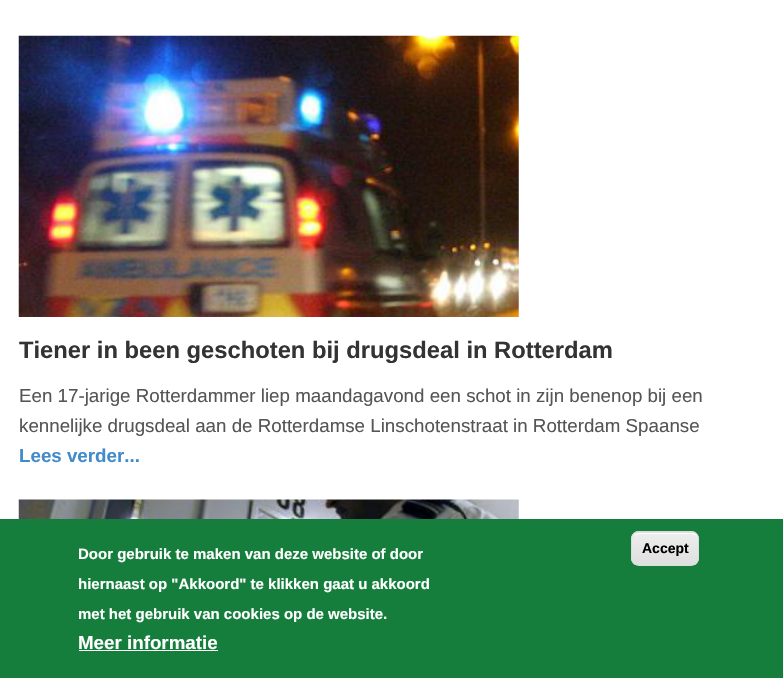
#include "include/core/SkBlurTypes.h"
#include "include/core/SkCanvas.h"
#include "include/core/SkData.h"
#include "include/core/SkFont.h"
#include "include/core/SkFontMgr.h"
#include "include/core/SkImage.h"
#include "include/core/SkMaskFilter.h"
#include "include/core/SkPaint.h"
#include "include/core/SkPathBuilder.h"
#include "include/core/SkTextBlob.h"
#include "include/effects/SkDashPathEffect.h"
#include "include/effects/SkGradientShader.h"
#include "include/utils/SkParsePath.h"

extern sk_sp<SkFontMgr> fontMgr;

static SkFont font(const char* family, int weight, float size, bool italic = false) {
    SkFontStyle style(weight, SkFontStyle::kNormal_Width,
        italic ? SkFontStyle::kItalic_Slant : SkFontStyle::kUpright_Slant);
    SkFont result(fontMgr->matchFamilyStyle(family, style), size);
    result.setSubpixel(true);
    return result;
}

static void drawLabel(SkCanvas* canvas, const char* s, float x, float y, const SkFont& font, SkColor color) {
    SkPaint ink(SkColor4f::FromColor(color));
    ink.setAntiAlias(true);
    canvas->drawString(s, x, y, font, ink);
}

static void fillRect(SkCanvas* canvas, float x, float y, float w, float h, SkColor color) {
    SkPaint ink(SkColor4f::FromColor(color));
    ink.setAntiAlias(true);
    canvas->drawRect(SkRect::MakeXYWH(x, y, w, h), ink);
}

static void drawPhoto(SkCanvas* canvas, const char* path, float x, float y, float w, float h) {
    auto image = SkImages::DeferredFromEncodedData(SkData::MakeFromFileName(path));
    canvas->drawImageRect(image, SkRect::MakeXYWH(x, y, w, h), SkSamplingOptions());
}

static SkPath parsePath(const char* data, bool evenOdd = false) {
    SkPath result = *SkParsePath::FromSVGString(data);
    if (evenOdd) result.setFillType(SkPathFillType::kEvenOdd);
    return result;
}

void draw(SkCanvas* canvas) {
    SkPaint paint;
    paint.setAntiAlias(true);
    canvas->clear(0xFFFFFFFF);
    drawPhoto(canvas, "assets/img1.png", 18, 35, 501, 282);
    SkFont font1 = font("Liberation Sans", 700, 23.75f);
    drawLabel(canvas, "Tiener in been geschoten bij drugsdeal in Rotterdam", 19, 358, font1, 0xFF333333);
    SkFont font2 = font("Liberation Sans", 400, 18.75f);
    drawLabel(canvas, "Een 17-jarige Rotterdammer liep maandagavond een schot in zijn benenop bij een", 19, 402, font2, 0xFF555555);
    drawLabel(canvas, "kennelijke drugsdeal aan de Rotterdamse Linschotenstraat in Rotterdam Spaanse", 19, 432, font2, 0xFF555555);
    SkFont font3 = font("Liberation Sans", 700, 18.75f);
    drawLabel(canvas, "Lees verder...", 19, 462, font3, 0xFF428BCA);
    drawPhoto(canvas, "assets/img2.png", 18, 499, 501, 20);
    fillRect(canvas, 0, 519, 783, 159, 0xFF157E3C);
    SkFont font4 = font("Liberation Sans", 700, 15);
    drawLabel(canvas, "Door gebruik te maken van deze website of door", 78, 559, font4, 0xFFFFFFFF);
    drawLabel(canvas, "hiernaast op \"Akkoord\" te klikken gaat u akkoord", 78, 589, font4, 0xFFFFFFFF);
    drawLabel(canvas, "met het gebruik van cookies op de website.", 78, 619, font4, 0xFFFFFFFF);
    drawLabel(canvas, "Meer informatie", 78, 649, font3, 0xFFFFFFFF);
    fillRect(canvas, 79, 650, 139, 1, 0xFFFFFFFF);
    canvas->save();
    canvas->clipPath(parsePath("M639 531H691C695.5 531 699 534.5 699 539V558C699 562.5 695.5 566 691 566H639C634.5 566 631 562.5 631 558V539C631 534.5 634.5 531 639 531Z"), true);
    {
        const SkColor colors[] = {0xFFEDEDED, 0xFFDFDFDF};
        const float stops[] = {0.05f, 1};
        const SkPoint ends[] = {{665, 500}, {665, 533}};
        paint.setShader(SkGradientShader::MakeLinear(ends, colors, stops, 2, SkTileMode::kClamp));
        paint.setAlpha(255);
    }
    canvas->drawRect(SkRect::MakeXYWH(631, 531, 68, 2), paint);
    {
        const SkColor colors[] = {0xFFEDEDED, 0xFFDFDFDF};
        const float stops[] = {0.05f, 1};
        const SkPoint ends[] = {{665, 533}, {665, 565}};
        paint.setShader(SkGradientShader::MakeLinear(ends, colors, stops, 2, SkTileMode::kClamp));
        paint.setAlpha(255);
    }
    canvas->drawRect(SkRect::MakeXYWH(631, 533, 68, 32), paint);
    canvas->restore();
    paint.setShader(nullptr);
    paint.setColor(0xFFFFFFFF);
    canvas->drawPath(parsePath("M639 534H691C695 534 698 537 698 540V539C698 536 695 533 692 533H639C637 533 635 534 634 536C635 535 637 534 639 534Z"), paint);
    paint.setStroke(true);
    paint.setStrokeWidth(1);
    paint.setColor(0xFFDCDCDC);
    canvas->drawRoundRect(SkRect::MakeXYWH(631.5f, 531.5f, 67, 34), 7.5f, 7.5f, paint);
    SkFont font5 = font("Liberation Sans", 700, 14);
    drawLabel(canvas, "Accept", 642, 553, font5, 0xFF000000);
}
